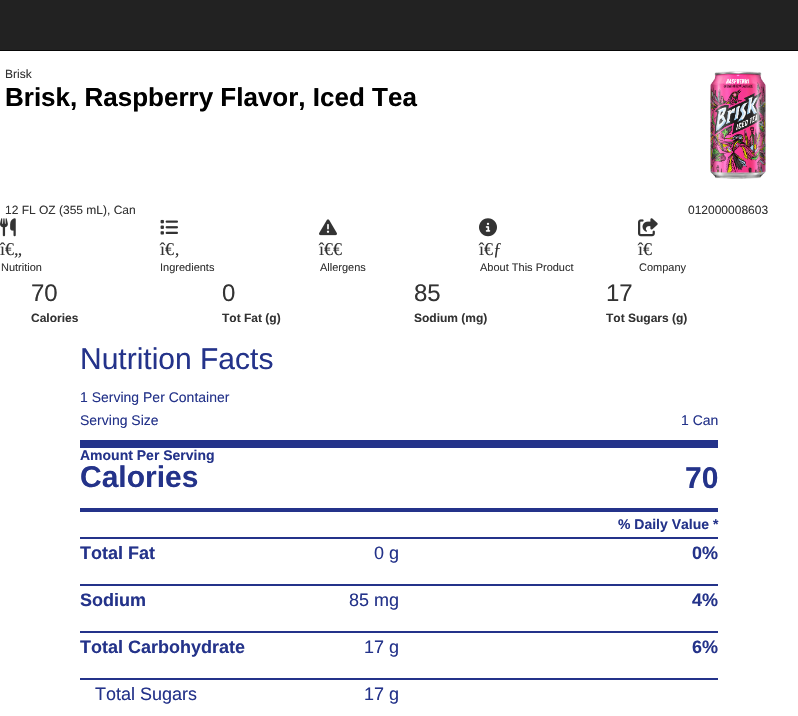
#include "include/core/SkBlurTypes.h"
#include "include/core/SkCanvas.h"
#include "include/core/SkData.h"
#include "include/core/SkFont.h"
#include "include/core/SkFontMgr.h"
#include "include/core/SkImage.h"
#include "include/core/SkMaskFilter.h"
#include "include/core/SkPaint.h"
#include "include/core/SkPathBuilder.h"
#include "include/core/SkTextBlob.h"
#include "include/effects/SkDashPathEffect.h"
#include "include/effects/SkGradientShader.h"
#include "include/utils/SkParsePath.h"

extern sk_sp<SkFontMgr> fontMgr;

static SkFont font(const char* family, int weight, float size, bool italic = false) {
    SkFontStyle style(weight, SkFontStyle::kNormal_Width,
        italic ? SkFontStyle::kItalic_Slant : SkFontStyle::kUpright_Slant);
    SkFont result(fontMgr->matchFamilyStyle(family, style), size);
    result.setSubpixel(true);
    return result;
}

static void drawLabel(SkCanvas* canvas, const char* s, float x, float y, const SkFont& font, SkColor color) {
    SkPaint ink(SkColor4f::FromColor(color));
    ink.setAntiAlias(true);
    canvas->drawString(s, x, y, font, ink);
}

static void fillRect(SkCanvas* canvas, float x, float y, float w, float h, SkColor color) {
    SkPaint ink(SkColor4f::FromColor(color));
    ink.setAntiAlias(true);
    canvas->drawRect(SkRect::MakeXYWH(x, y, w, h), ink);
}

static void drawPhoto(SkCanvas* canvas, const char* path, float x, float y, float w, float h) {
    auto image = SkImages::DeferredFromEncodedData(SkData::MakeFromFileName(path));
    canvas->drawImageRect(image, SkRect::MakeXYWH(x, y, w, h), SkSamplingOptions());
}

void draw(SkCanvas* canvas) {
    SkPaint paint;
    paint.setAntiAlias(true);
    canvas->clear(0xFFFFFFFF);
    fillRect(canvas, 0, 0, 798, 50, 0xFF222222);
    fillRect(canvas, 0, 50, 798, 1, 0xFF080808);
    SkFont font1 = font("Liberation Sans", 400, 12);
    drawLabel(canvas, "Brisk", 5, 78, font1, 0xFF333333);
    SkFont font2 = font("Liberation Sans", 700, 26);
    drawLabel(canvas, "Brisk, Raspberry Flavor, Iced Tea", 5, 106, font2, 0xFF000000);
    drawLabel(canvas, "12 FL OZ (355 mL), Can", 5, 214, font1, 0xFF333333);
    drawLabel(canvas, "012000008603", 688, 214, font1, 0xFF333333);
    drawPhoto(canvas, "assets/img1.png", 710, 71, 56, 108);
    drawPhoto(canvas, "assets/img2.png", 0, 218, 16, 19);
    SkFont font3 = font("Liberation Serif", 400, 18);
    drawLabel(canvas, "î€„", 0, 255, font3, 0xFF333333);
    SkFont font4 = font("Liberation Sans", 400, 11);
    drawLabel(canvas, "Nutrition", 1, 271, font4, 0xFF333333);
    drawPhoto(canvas, "assets/img3.png", 160, 219, 18, 16);
    drawLabel(canvas, "î€‚", 160, 255, font3, 0xFF333333);
    drawLabel(canvas, "Ingredients", 160, 271, font4, 0xFF333333);
    drawPhoto(canvas, "assets/img4.png", 319, 219, 18, 17);
    drawLabel(canvas, "î€€", 319, 255, font3, 0xFF333333);
    drawLabel(canvas, "Allergens", 320, 271, font4, 0xFF333333);
    drawPhoto(canvas, "assets/img5.png", 479, 218, 18, 19);
    drawLabel(canvas, "î€ƒ", 479, 255, font3, 0xFF333333);
    drawLabel(canvas, "About This Product", 480, 271, font4, 0xFF333333);
    drawPhoto(canvas, "assets/img6.png", 638, 218, 20, 19);
    drawLabel(canvas, "î€", 638, 255, font3, 0xFF333333);
    drawLabel(canvas, "Company", 639, 271, font4, 0xFF333333);
    SkFont font5 = font("Liberation Sans", 400, 24);
    drawLabel(canvas, "70", 31, 301, font5, 0xFF333333);
    SkFont font6 = font("Liberation Sans", 700, 12);
    drawLabel(canvas, "Calories", 31, 322, font6, 0xFF333333);
    drawLabel(canvas, "0", 222, 301, font5, 0xFF333333);
    drawLabel(canvas, "Tot Fat (g)", 222, 322, font6, 0xFF333333);
    drawLabel(canvas, "85", 414, 301, font5, 0xFF333333);
    drawLabel(canvas, "Sodium (mg)", 414, 322, font6, 0xFF333333);
    drawLabel(canvas, "17", 606, 301, font5, 0xFF333333);
    drawLabel(canvas, "Tot Sugars (g)", 606, 322, font6, 0xFF333333);
    fillRect(canvas, 80, 440, 638, 8, 0xFF24338A);
    SkFont font7 = font("Liberation Sans", 400, 30);
    drawLabel(canvas, "Nutrition Facts", 80, 369, font7, 0xFF24338A);
    SkFont font8 = font("Liberation Sans", 400, 14);
    drawLabel(canvas, "1 Serving Per Container", 80, 402, font8, 0xFF24338A);
    drawLabel(canvas, "Serving Size", 80, 425, font8, 0xFF24338A);
    drawLabel(canvas, "1 Can", 681, 425, font8, 0xFF24338A);
    SkFont font9 = font("Liberation Sans", 700, 14);
    drawLabel(canvas, "Amount Per Serving", 80, 460, font9, 0xFF24338A);
    fillRect(canvas, 80, 508, 638, 4, 0xFF24338A);
    SkFont font10 = font("Liberation Sans", 700, 30);
    drawLabel(canvas, "Calories", 80, 487, font10, 0xFF24338A);
    drawLabel(canvas, "70", 685, 488, font10, 0xFF24338A);
    fillRect(canvas, 80, 537, 638, 2, 0xFF24338A);
    drawLabel(canvas, "% Daily Value *", 618, 529, font9, 0xFF24338A);
    fillRect(canvas, 80, 584, 638, 2, 0xFF24338A);
    SkFont font11 = font("Liberation Sans", 700, 18);
    drawLabel(canvas, "Total Fat", 80, 559, font11, 0xFF24338A);
    SkFont font12 = font("Liberation Sans", 400, 18);
    drawLabel(canvas, "0 g", 374, 559, font12, 0xFF24338A);
    drawLabel(canvas, "0%", 692, 559, font11, 0xFF24338A);
    fillRect(canvas, 80, 631, 638, 2, 0xFF24338A);
    drawLabel(canvas, "Sodium", 80, 606, font11, 0xFF24338A);
    drawLabel(canvas, "85 mg", 349, 606, font12, 0xFF24338A);
    drawLabel(canvas, "4%", 692, 606, font11, 0xFF24338A);
    fillRect(canvas, 80, 678, 638, 2, 0xFF24338A);
    drawLabel(canvas, "Total Carbohydrate", 80, 653, font11, 0xFF24338A);
    drawLabel(canvas, "17 g", 364, 653, font12, 0xFF24338A);
    drawLabel(canvas, "6%", 692, 653, font11, 0xFF24338A);
    drawLabel(canvas, "Total Sugars", 95, 700, font12, 0xFF24338A);
    drawLabel(canvas, "17 g", 364, 700, font12, 0xFF24338A);
}
